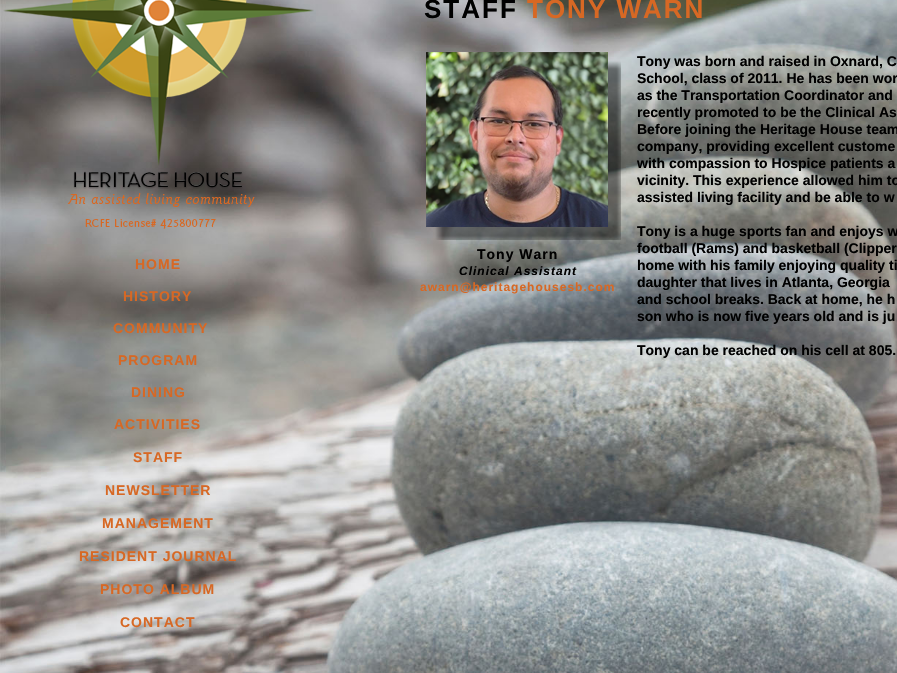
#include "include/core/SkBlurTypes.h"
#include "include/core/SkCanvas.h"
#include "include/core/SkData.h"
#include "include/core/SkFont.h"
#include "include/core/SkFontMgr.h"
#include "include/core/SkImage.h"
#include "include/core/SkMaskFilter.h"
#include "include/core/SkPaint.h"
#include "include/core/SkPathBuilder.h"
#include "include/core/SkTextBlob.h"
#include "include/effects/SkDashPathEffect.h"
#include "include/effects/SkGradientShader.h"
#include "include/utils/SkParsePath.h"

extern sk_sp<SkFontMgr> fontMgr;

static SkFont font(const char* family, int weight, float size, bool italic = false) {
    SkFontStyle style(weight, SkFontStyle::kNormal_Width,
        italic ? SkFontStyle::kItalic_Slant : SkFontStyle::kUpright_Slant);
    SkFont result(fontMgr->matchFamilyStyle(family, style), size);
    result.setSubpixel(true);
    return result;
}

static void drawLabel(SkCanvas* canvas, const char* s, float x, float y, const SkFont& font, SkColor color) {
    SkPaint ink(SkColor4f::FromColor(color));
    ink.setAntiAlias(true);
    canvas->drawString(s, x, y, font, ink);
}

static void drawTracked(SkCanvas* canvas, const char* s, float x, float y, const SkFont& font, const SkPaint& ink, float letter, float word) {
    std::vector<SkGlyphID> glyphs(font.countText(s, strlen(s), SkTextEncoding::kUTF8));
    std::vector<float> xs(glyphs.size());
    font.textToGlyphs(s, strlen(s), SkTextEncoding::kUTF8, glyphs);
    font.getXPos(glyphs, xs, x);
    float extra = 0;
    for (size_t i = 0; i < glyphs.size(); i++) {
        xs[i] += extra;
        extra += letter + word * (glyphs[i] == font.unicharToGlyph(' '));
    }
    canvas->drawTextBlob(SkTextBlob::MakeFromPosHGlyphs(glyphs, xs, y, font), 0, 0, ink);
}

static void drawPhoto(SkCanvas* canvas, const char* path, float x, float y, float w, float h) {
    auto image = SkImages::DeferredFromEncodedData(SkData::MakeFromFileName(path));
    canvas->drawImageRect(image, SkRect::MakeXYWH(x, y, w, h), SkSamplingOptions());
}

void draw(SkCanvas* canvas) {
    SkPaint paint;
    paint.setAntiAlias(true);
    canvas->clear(0xFFFFFFFF);
    drawPhoto(canvas, "assets/img1.png", 0, 0, 897, 673);
    SkFont font1 = font("Liberation Sans", 700, 26);
    paint.setColor(0xFF000000);
    drawTracked(canvas, "STAFF", 424, 18, font1, paint, 2, 0);
    paint.setColor(0xFFD76824);
    drawTracked(canvas, "TONY WARN", 527, 18, font1, paint, 2, 0);
    drawPhoto(canvas, "assets/img2.png", 426, 52, 195, 188);
    SkFont font2 = font("Liberation Sans", 700, 14);
    drawLabel(canvas, "Tony was born and raised in Oxnard, C", 637, 66, font2, 0xFF000000);
    drawLabel(canvas, "School, class of 2011. He has been wor", 637, 83, font2, 0xFF000000);
    drawLabel(canvas, "as the Transportation Coordinator and", 637, 100, font2, 0xFF000000);
    drawLabel(canvas, "recently promoted to be the Clinical As", 637, 117, font2, 0xFF000000);
    drawLabel(canvas, "Before joining the Heritage House team", 637, 134, font2, 0xFF000000);
    drawLabel(canvas, "company, providing excellent custome", 637, 151, font2, 0xFF000000);
    drawLabel(canvas, "with compassion to Hospice patients a", 637, 168, font2, 0xFF000000);
    drawLabel(canvas, "vicinity. This experience allowed him to", 637, 185, font2, 0xFF000000);
    drawLabel(canvas, "assisted living facility and be able to w", 637, 202, font2, 0xFF000000);
    drawLabel(canvas, "Tony is a huge sports fan and enjoys w", 637, 236, font2, 0xFF000000);
    drawLabel(canvas, "football (Rams) and basketball (Clipper", 637, 253, font2, 0xFF000000);
    drawLabel(canvas, "home with his family enjoying quality ti", 637, 270, font2, 0xFF000000);
    drawLabel(canvas, "daughter that lives in Atlanta, Georgia", 637, 287, font2, 0xFF000000);
    drawLabel(canvas, "and school breaks. Back at home, he h", 637, 304, font2, 0xFF000000);
    drawLabel(canvas, "son who is now five years old and is ju", 637, 321, font2, 0xFF000000);
    drawLabel(canvas, "Tony can be reached on his cell at 805.", 637, 355, font2, 0xFF000000);
    paint.setColor(0xFF000000);
    drawTracked(canvas, "Tony Warn", 477, 259, font2, paint, 1, 0);
    SkFont font3 = font("Liberation Sans", 700, 12, true);
    drawTracked(canvas, "Clinical Assistant", 459, 275, font3, paint, 1, 0);
    SkFont font4 = font("Liberation Sans", 700, 12);
    paint.setColor(0xFFD76824);
    drawTracked(canvas, "awarn@heritagehousesb.com", 420, 291, font4, paint, 1, 0);
    drawPhoto(canvas, "assets/img3.png", 3, 0, 311, 229);
    drawTracked(canvas, "HOME", 135, 269, font2, paint, 1, 0);
    drawTracked(canvas, "HISTORY", 123, 301, font2, paint, 1, 0);
    drawTracked(canvas, "COMMUNITY", 113, 333, font2, paint, 1, 0);
    drawTracked(canvas, "PROGRAM", 118, 365, font2, paint, 1, 0);
    drawTracked(canvas, "DINING", 131, 397, font2, paint, 1, 0);
    drawTracked(canvas, "ACTIVITIES", 114, 429, font2, paint, 1, 0);
    drawTracked(canvas, "STAFF", 133, 462, font2, paint, 1, 0);
    drawTracked(canvas, "NEWSLETTER", 105, 495, font2, paint, 1, 0);
    drawTracked(canvas, "MANAGEMENT", 102, 528, font2, paint, 1, 0);
    drawTracked(canvas, "RESIDENT JOURNAL", 79, 561, font2, paint, 1, 0);
    drawTracked(canvas, "PHOTO ALBUM", 100, 594, font2, paint, 1, 0);
    drawTracked(canvas, "CONTACT", 120, 627, font2, paint, 1, 0);
}
